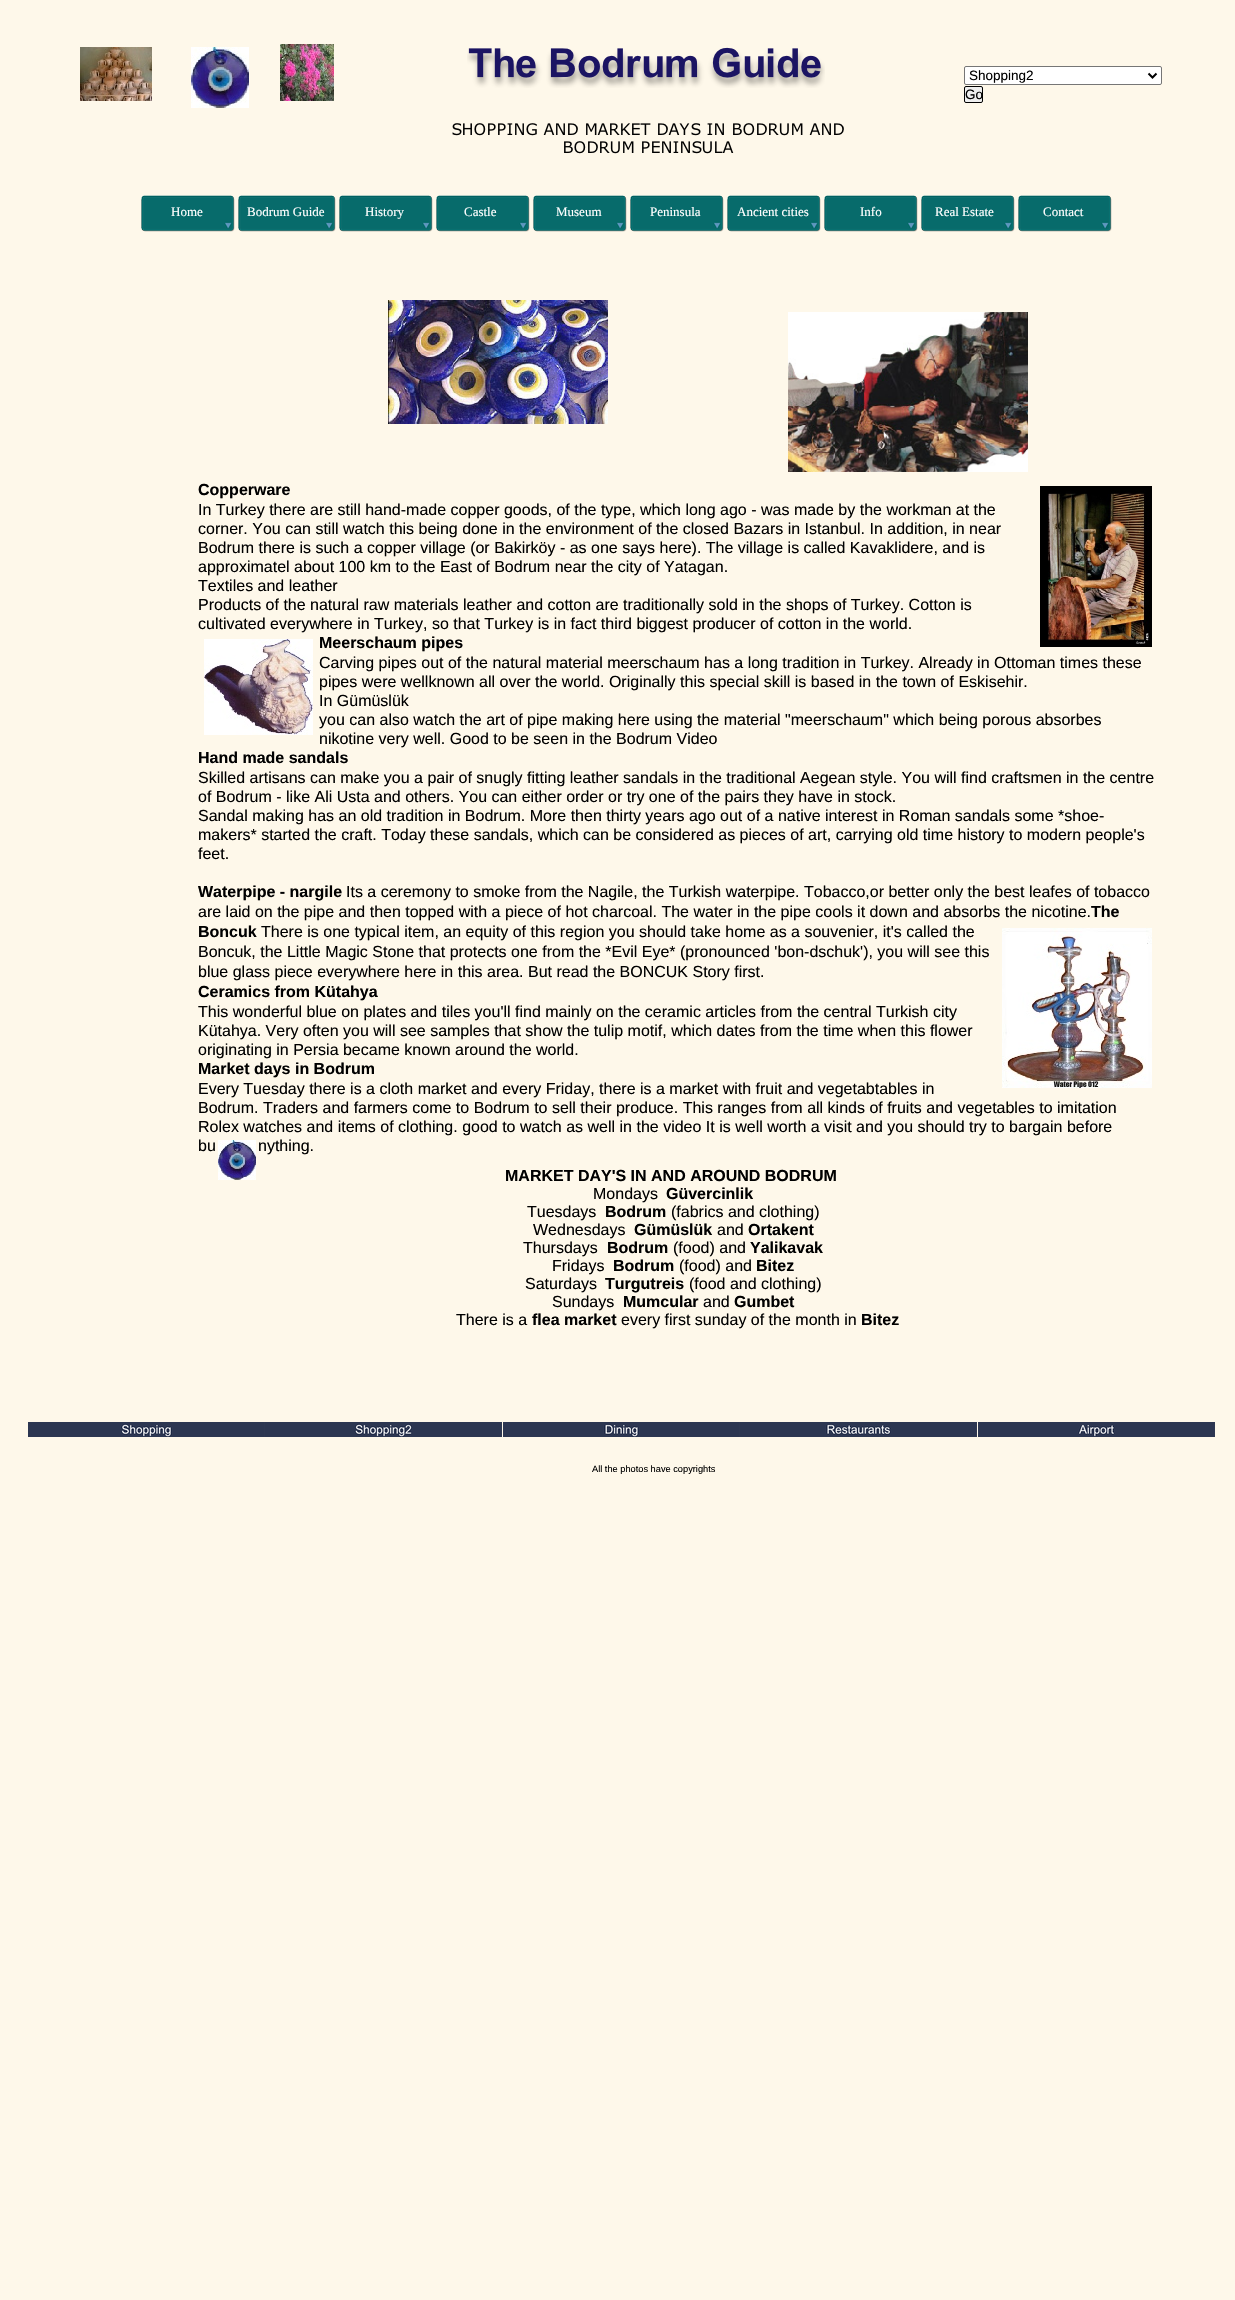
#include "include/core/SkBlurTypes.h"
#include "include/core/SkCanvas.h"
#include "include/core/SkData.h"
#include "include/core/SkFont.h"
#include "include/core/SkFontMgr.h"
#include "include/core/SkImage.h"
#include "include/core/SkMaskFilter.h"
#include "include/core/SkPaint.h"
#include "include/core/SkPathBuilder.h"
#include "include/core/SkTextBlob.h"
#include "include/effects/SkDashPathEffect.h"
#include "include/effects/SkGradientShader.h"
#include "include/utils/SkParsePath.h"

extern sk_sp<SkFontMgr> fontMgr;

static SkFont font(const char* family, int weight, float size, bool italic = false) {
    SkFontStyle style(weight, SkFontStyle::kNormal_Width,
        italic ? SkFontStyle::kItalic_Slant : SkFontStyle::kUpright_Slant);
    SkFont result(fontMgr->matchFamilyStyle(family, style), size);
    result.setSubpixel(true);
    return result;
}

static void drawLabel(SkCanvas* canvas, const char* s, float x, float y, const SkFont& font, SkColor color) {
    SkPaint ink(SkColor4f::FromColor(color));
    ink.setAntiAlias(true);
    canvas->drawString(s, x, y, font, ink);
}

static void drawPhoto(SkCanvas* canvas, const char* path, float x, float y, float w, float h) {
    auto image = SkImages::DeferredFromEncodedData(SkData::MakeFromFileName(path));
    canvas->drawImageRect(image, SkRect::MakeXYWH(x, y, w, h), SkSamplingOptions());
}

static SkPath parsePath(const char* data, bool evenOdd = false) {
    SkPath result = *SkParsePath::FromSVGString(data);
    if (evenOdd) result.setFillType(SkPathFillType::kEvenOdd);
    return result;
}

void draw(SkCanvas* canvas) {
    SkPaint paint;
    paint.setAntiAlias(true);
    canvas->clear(0xFFFEF8EA);
    drawPhoto(canvas, "assets/img1.png", 80, 47, 72, 54);
    drawPhoto(canvas, "assets/img2.png", 191, 47, 58, 61);
    drawPhoto(canvas, "assets/img3.png", 280, 44, 54, 57);
    drawPhoto(canvas, "assets/img4.png", 467, 47, 358, 41);
    paint.setColor(0xFFFFFFFF);
    canvas->drawRoundRect(SkRect::MakeXYWH(964.5f, 66.5f, 197, 18), 1.5f, 1.5f, paint);
    paint.setStroke(true);
    paint.setStrokeWidth(1);
    paint.setColor(0xFF767676);
    canvas->drawRoundRect(SkRect::MakeXYWH(964.5f, 66.5f, 197, 18), 1.5f, 1.5f, paint);
    paint.setStrokeWidth(2);
    paint.setColor(0xFF000000);
    canvas->drawPath(parsePath("M1148.5 73.5L1152.5 77.5L1156.5 73.5"), paint);
    SkFont font1 = font("Liberation Sans", 400, 13.5f);
    drawLabel(canvas, "Shopping2", 969, 80, font1, 0xFF000000);
    paint.setStroke(false);
    paint.setColor(0xFFEFEFEF);
    canvas->drawRoundRect(SkRect::MakeXYWH(964.5f, 86.5f, 18, 16), 1.5f, 1.5f, paint);
    paint.setStroke(true);
    paint.setStrokeWidth(1);
    paint.setColor(0xFF000000);
    canvas->drawRoundRect(SkRect::MakeXYWH(964.5f, 86.5f, 18, 16), 1.5f, 1.5f, paint);
    drawLabel(canvas, "Go", 965, 99, font1, 0xFF000000);
    drawPhoto(canvas, "assets/img5.png", 452, 123, 392, 31);
    drawPhoto(canvas, "assets/img6.png", 141, 195, 94, 37);
    SkFont font2 = font("Liberation Serif", 400, 13);
    drawLabel(canvas, "Home", 171, 216, font2, 0xFFFFFFFF);
    drawPhoto(canvas, "assets/img7.png", 238, 195, 98, 37);
    drawLabel(canvas, "Bodrum Guide", 247, 216, font2, 0xFFFFFFFF);
    drawPhoto(canvas, "assets/img6.png", 339, 195, 94, 37);
    drawLabel(canvas, "History", 365, 216, font2, 0xFFFFFFFF);
    drawPhoto(canvas, "assets/img6.png", 436, 195, 94, 37);
    drawLabel(canvas, "Castle", 464, 216, font2, 0xFFFFFFFF);
    drawPhoto(canvas, "assets/img6.png", 533, 195, 94, 37);
    drawLabel(canvas, "Museum", 556, 216, font2, 0xFFFFFFFF);
    drawPhoto(canvas, "assets/img6.png", 630, 195, 94, 37);
    drawLabel(canvas, "Peninsula", 650, 216, font2, 0xFFFFFFFF);
    drawPhoto(canvas, "assets/img6.png", 727, 195, 94, 37);
    drawLabel(canvas, "Ancient cities", 737, 216, font2, 0xFFFFFFFF);
    drawPhoto(canvas, "assets/img6.png", 824, 195, 94, 37);
    drawLabel(canvas, "Info", 860, 216, font2, 0xFFFFFFFF);
    drawPhoto(canvas, "assets/img6.png", 921, 195, 94, 37);
    drawLabel(canvas, "Real Estate", 935, 216, font2, 0xFFFFFFFF);
    drawPhoto(canvas, "assets/img6.png", 1018, 195, 94, 37);
    drawLabel(canvas, "Contact", 1043, 216, font2, 0xFFFFFFFF);
    drawPhoto(canvas, "assets/img8.png", 388, 300, 220, 124);
    drawPhoto(canvas, "assets/img9.png", 788, 312, 240, 160);
    SkFont font3 = font("Liberation Sans", 700, 16);
    drawLabel(canvas, "Copperware", 198, 495, font3, 0xFF000000);
    drawPhoto(canvas, "assets/img10.png", 1040, 486, 112, 161);
    SkFont font4 = font("Liberation Sans", 400, 16);
    drawLabel(canvas, "In Turkey there are still hand-made copper goods, of the type, which long ago - was made by the workman at the", 198, 515, font4, 0xFF000000);
    drawLabel(canvas, "corner. You can still watch this being done in the environment of the closed Bazars in Istanbul. In addition, in near", 198, 534, font4, 0xFF000000);
    drawLabel(canvas, "Bodrum there is such a copper village (or Bakirköy - as one says here). The village is called Kavaklidere, and is", 198, 553, font4, 0xFF000000);
    drawLabel(canvas, "approximatel about 100 km to the East of Bodrum near the city of Yatagan.", 198, 572, font4, 0xFF000000);
    drawLabel(canvas, "Textiles and leather", 198, 591, font4, 0xFF000000);
    drawLabel(canvas, "Products of the natural raw materials leather and cotton are traditionally sold in the shops of Turkey. Cotton is", 198, 610, font4, 0xFF000000);
    drawLabel(canvas, "cultivated everywhere in Turkey, so that Turkey is in fact third biggest producer of cotton in the world.", 198, 629, font4, 0xFF000000);
    drawPhoto(canvas, "assets/img11.png", 204, 639, 109, 96);
    drawLabel(canvas, "Meerschaum pipes", 319, 648, font3, 0xFF000000);
    drawLabel(canvas, "Carving pipes out of the natural material meerschaum has a long tradition in Turkey. Already in Ottoman times these", 319, 668, font4, 0xFF000000);
    drawLabel(canvas, "pipes were wellknown all over the world. Originally this special skill is based in the town of Eskisehir.", 319, 687, font4, 0xFF000000);
    drawLabel(canvas, "In Gümüslük", 319, 706, font4, 0xFF000000);
    drawLabel(canvas, "you can also watch the art of pipe making here using the material \"meerschaum\" which being porous absorbes", 319, 725, font4, 0xFF000000);
    drawLabel(canvas, "nikotine very well. Good to be seen in the Bodrum Video", 319, 744, font4, 0xFF000000);
    drawLabel(canvas, "Hand made sandals", 198, 763, font3, 0xFF000000);
    drawLabel(canvas, "Skilled artisans can make you a pair of snugly fitting leather sandals in the traditional Aegean style. You will find craftsmen in the centre", 198, 783, font4, 0xFF000000);
    drawLabel(canvas, "of Bodrum - like Ali Usta and others. You can either order or try one of the pairs they have in stock.", 198, 802, font4, 0xFF000000);
    drawLabel(canvas, "Sandal making has an old tradition in Bodrum. More then thirty years ago out of a native interest in Roman sandals some *shoe-", 198, 821, font4, 0xFF000000);
    drawLabel(canvas, "makers* started the craft. Today these sandals, which can be considered as pieces of art, carrying old time history to modern people's", 198, 840, font4, 0xFF000000);
    drawLabel(canvas, "feet.", 198, 859, font4, 0xFF000000);
    drawLabel(canvas, "Waterpipe - nargile", 198, 897, font3, 0xFF000000);
    drawLabel(canvas, "Its a ceremony to smoke from the Nagile, the Turkish waterpipe. Tobacco,or better only the best leafes of tobacco", 346, 897, font4, 0xFF000000);
    drawLabel(canvas, "are laid on the pipe and then topped with a piece of hot charcoal. The water in the pipe cools it down and absorbs the nicotine.", 198, 917, font4, 0xFF000000);
    drawLabel(canvas, "The", 1091, 917, font3, 0xFF000000);
    drawLabel(canvas, "Boncuk", 198, 937, font3, 0xFF000000);
    drawLabel(canvas, "There is one typical item, an equity of this region you should take home as a souvenier, it's called the", 261, 937, font4, 0xFF000000);
    drawPhoto(canvas, "assets/img12.png", 1002, 928, 150, 160);
    drawLabel(canvas, "Boncuk, the Little Magic Stone that protects one from the *Evil Eye* (pronounced 'bon-dschuk'), you will see this", 198, 957, font4, 0xFF000000);
    drawLabel(canvas, "blue glass piece everywhere here in this area. But read the BONCUK Story first.", 198, 977, font4, 0xFF000000);
    drawLabel(canvas, "Ceramics from Kütahya", 198, 997, font3, 0xFF000000);
    drawLabel(canvas, "This wonderful blue on plates and tiles you'll find mainly on the ceramic articles from the central Turkish city", 198, 1017, font4, 0xFF000000);
    drawLabel(canvas, "Kütahya. Very often you will see samples that show the tulip motif, which dates from the time when this flower", 198, 1036, font4, 0xFF000000);
    drawLabel(canvas, "originating in Persia became known around the world.", 198, 1055, font4, 0xFF000000);
    drawLabel(canvas, "Market days in Bodrum", 198, 1074, font3, 0xFF000000);
    drawLabel(canvas, "Every Tuesday there is a cloth market and every Friday, there is a market with fruit and vegetabtables in", 198, 1094, font4, 0xFF000000);
    drawLabel(canvas, "Bodrum. Traders and farmers come to Bodrum to sell their produce. This ranges from all kinds of fruits and vegetables to imitation", 198, 1113, font4, 0xFF000000);
    drawLabel(canvas, "Rolex watches and items of clothing. good to watch as well in the video It is well worth a visit and you should try to bargain before", 198, 1132, font4, 0xFF000000);
    drawLabel(canvas, "bu", 198, 1151, font4, 0xFF000000);
    drawLabel(canvas, "nything.", 258, 1151, font4, 0xFF000000);
    drawLabel(canvas, "MARKET DAY'S IN AND AROUND BODRUM", 505, 1181, font3, 0xFF000000);
    drawLabel(canvas, "Mondays", 593, 1199, font4, 0xFF000000);
    drawLabel(canvas, "Güvercinlik", 666, 1199, font3, 0xFF000000);
    drawLabel(canvas, "Tuesdays", 527, 1217, font4, 0xFF000000);
    drawLabel(canvas, "Bodrum", 605, 1217, font3, 0xFF000000);
    drawLabel(canvas, "(fabrics and clothing)", 671, 1217, font4, 0xFF000000);
    drawLabel(canvas, "Wednesdays", 533, 1235, font4, 0xFF000000);
    drawLabel(canvas, "Gümüslük", 634, 1235, font3, 0xFF000000);
    drawLabel(canvas, "and", 717, 1235, font4, 0xFF000000);
    drawLabel(canvas, "Ortakent", 748, 1235, font3, 0xFF000000);
    drawLabel(canvas, "Thursdays", 523, 1253, font4, 0xFF000000);
    drawLabel(canvas, "Bodrum", 607, 1253, font3, 0xFF000000);
    drawLabel(canvas, "(food) and", 673, 1253, font4, 0xFF000000);
    drawLabel(canvas, "Yalikavak", 750, 1253, font3, 0xFF000000);
    drawLabel(canvas, "Fridays", 552, 1271, font4, 0xFF000000);
    drawLabel(canvas, "Bodrum", 613, 1271, font3, 0xFF000000);
    drawLabel(canvas, "(food) and", 679, 1271, font4, 0xFF000000);
    drawLabel(canvas, "Bitez", 756, 1271, font3, 0xFF000000);
    drawLabel(canvas, "Saturdays", 525, 1289, font4, 0xFF000000);
    drawLabel(canvas, "Turgutreis", 605, 1289, font3, 0xFF000000);
    drawLabel(canvas, "(food and clothing)", 689, 1289, font4, 0xFF000000);
    drawLabel(canvas, "Sundays", 552, 1307, font4, 0xFF000000);
    drawLabel(canvas, "Mumcular", 623, 1307, font3, 0xFF000000);
    drawLabel(canvas, "and", 703, 1307, font4, 0xFF000000);
    drawLabel(canvas, "Gumbet", 734, 1307, font3, 0xFF000000);
    drawLabel(canvas, "There is a", 456, 1325, font4, 0xFF000000);
    drawLabel(canvas, "flea market", 532, 1325, font3, 0xFF000000);
    drawLabel(canvas, "every first sunday of the month in", 621, 1325, font4, 0xFF000000);
    drawLabel(canvas, "Bitez", 861, 1325, font3, 0xFF000000);
    drawPhoto(canvas, "assets/img13.png", 218, 1140, 38, 40);
    drawPhoto(canvas, "assets/img14.png", 28, 1422, 237, 15);
    drawPhoto(canvas, "assets/img15.png", 265, 1422, 237, 15);
    drawPhoto(canvas, "assets/img16.png", 503, 1422, 237, 15);
    drawPhoto(canvas, "assets/img17.png", 740, 1422, 237, 15);
    drawPhoto(canvas, "assets/img18.png", 978, 1422, 237, 15);
    SkFont font5 = font("Liberation Sans", 400, 9.25f);
    drawLabel(canvas, "All the photos have copyrights", 592, 1472, font5, 0xFF000000);
}
